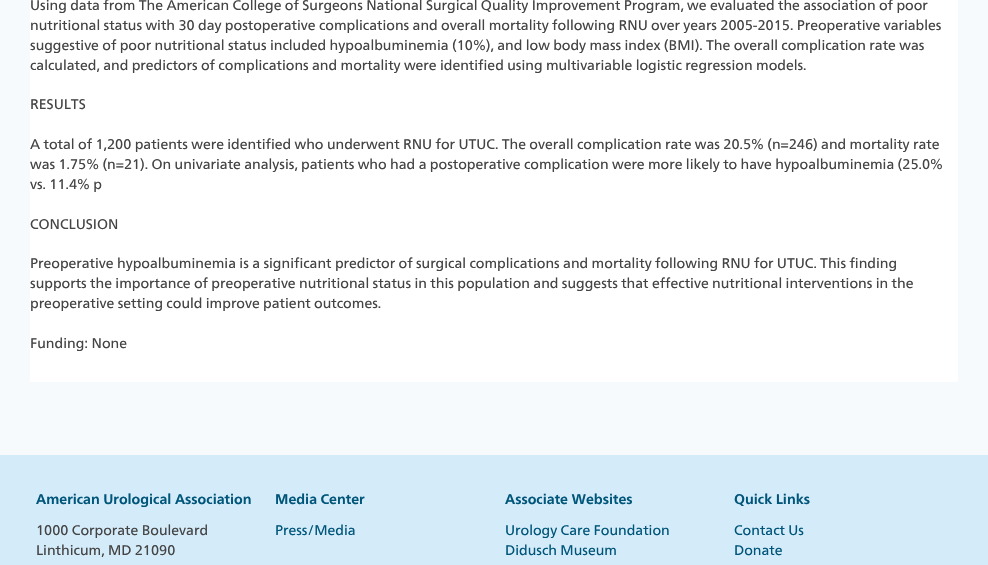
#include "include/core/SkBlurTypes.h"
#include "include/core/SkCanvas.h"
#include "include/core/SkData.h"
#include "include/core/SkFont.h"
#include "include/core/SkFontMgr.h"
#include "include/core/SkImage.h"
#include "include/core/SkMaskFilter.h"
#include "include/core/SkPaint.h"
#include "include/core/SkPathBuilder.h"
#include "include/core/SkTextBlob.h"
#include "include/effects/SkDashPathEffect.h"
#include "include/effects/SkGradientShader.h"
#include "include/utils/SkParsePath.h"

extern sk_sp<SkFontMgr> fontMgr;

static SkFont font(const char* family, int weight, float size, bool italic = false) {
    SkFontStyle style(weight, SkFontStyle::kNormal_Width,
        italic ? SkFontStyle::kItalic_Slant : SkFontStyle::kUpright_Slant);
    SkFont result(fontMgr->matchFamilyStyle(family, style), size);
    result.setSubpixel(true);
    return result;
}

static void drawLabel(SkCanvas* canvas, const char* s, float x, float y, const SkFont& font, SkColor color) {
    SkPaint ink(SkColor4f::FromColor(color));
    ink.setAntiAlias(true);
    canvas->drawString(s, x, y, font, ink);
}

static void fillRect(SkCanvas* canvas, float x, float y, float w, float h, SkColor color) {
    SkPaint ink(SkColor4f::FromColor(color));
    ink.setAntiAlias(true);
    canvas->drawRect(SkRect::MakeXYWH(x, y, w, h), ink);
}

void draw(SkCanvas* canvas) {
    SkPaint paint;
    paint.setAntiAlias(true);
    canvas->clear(0xFFF6FAFD);
    fillRect(canvas, 30, 0, 928, 382, 0xFFFFFFFF);
    SkFont font1 = font("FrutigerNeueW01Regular", 400, 14);
    drawLabel(canvas, "Using data from The American College of Surgeons National Surgical Quality Improvement Program, we evaluated the association of poor", 30, 10, font1, 0xFF444444);
    drawLabel(canvas, "nutritional status with 30 day postoperative complications and overall mortality following RNU over years 2005-2015. Preoperative variables", 30, 30, font1, 0xFF444444);
    drawLabel(canvas, "suggestive of poor nutritional status included hypoalbuminemia (10%), and low body mass index (BMI). The overall complication rate was", 30, 50, font1, 0xFF444444);
    drawLabel(canvas, "calculated, and predictors of complications and mortality were identified using multivariable logistic regression models.", 30, 70, font1, 0xFF444444);
    drawLabel(canvas, "RESULTS", 30, 109, font1, 0xFF444444);
    drawLabel(canvas, "A total of 1,200 patients were identified who underwent RNU for UTUC. The overall complication rate was 20.5% (n=246) and mortality rate", 30, 149, font1, 0xFF444444);
    drawLabel(canvas, "was 1.75% (n=21). On univariate analysis, patients who had a postoperative complication were more likely to have hypoalbuminemia (25.0%", 30, 169, font1, 0xFF444444);
    drawLabel(canvas, "vs. 11.4% p", 30, 189, font1, 0xFF444444);
    drawLabel(canvas, "CONCLUSION", 30, 229, font1, 0xFF444444);
    drawLabel(canvas, "Preoperative hypoalbuminemia is a significant predictor of surgical complications and mortality following RNU for UTUC. This finding", 30, 268, font1, 0xFF444444);
    drawLabel(canvas, "supports the importance of preoperative nutritional status in this population and suggests that effective nutritional interventions in the", 30, 288, font1, 0xFF444444);
    drawLabel(canvas, "preoperative setting could improve patient outcomes.", 30, 308, font1, 0xFF444444);
    drawLabel(canvas, "Funding: None", 30, 348, font1, 0xFF444444);
    fillRect(canvas, 0, 455, 988, 110, 0xFFD4EBF9);
    SkFont font2 = font("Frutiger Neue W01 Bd", 700, 14);
    drawLabel(canvas, "American Urological Association", 36, 504, font2, 0xFF00567A);
    drawLabel(canvas, "1000 Corporate Boulevard", 36, 535, font1, 0xFF444444);
    drawLabel(canvas, "Linthicum, MD 21090", 36, 555, font1, 0xFF444444);
    drawLabel(canvas, "Media Center", 275, 504, font2, 0xFF00567A);
    drawLabel(canvas, "Press/Media", 275, 535, font1, 0xFF00567A);
    drawLabel(canvas, "Associate Websites", 505, 504, font2, 0xFF00567A);
    drawLabel(canvas, "Urology Care Foundation", 505, 535, font1, 0xFF00567A);
    drawLabel(canvas, "Didusch Museum", 505, 555, font1, 0xFF00567A);
    drawLabel(canvas, "Quick Links", 734, 504, font2, 0xFF00567A);
    drawLabel(canvas, "Contact Us", 734, 535, font1, 0xFF00567A);
    drawLabel(canvas, "Donate", 734, 555, font1, 0xFF00567A);
}
